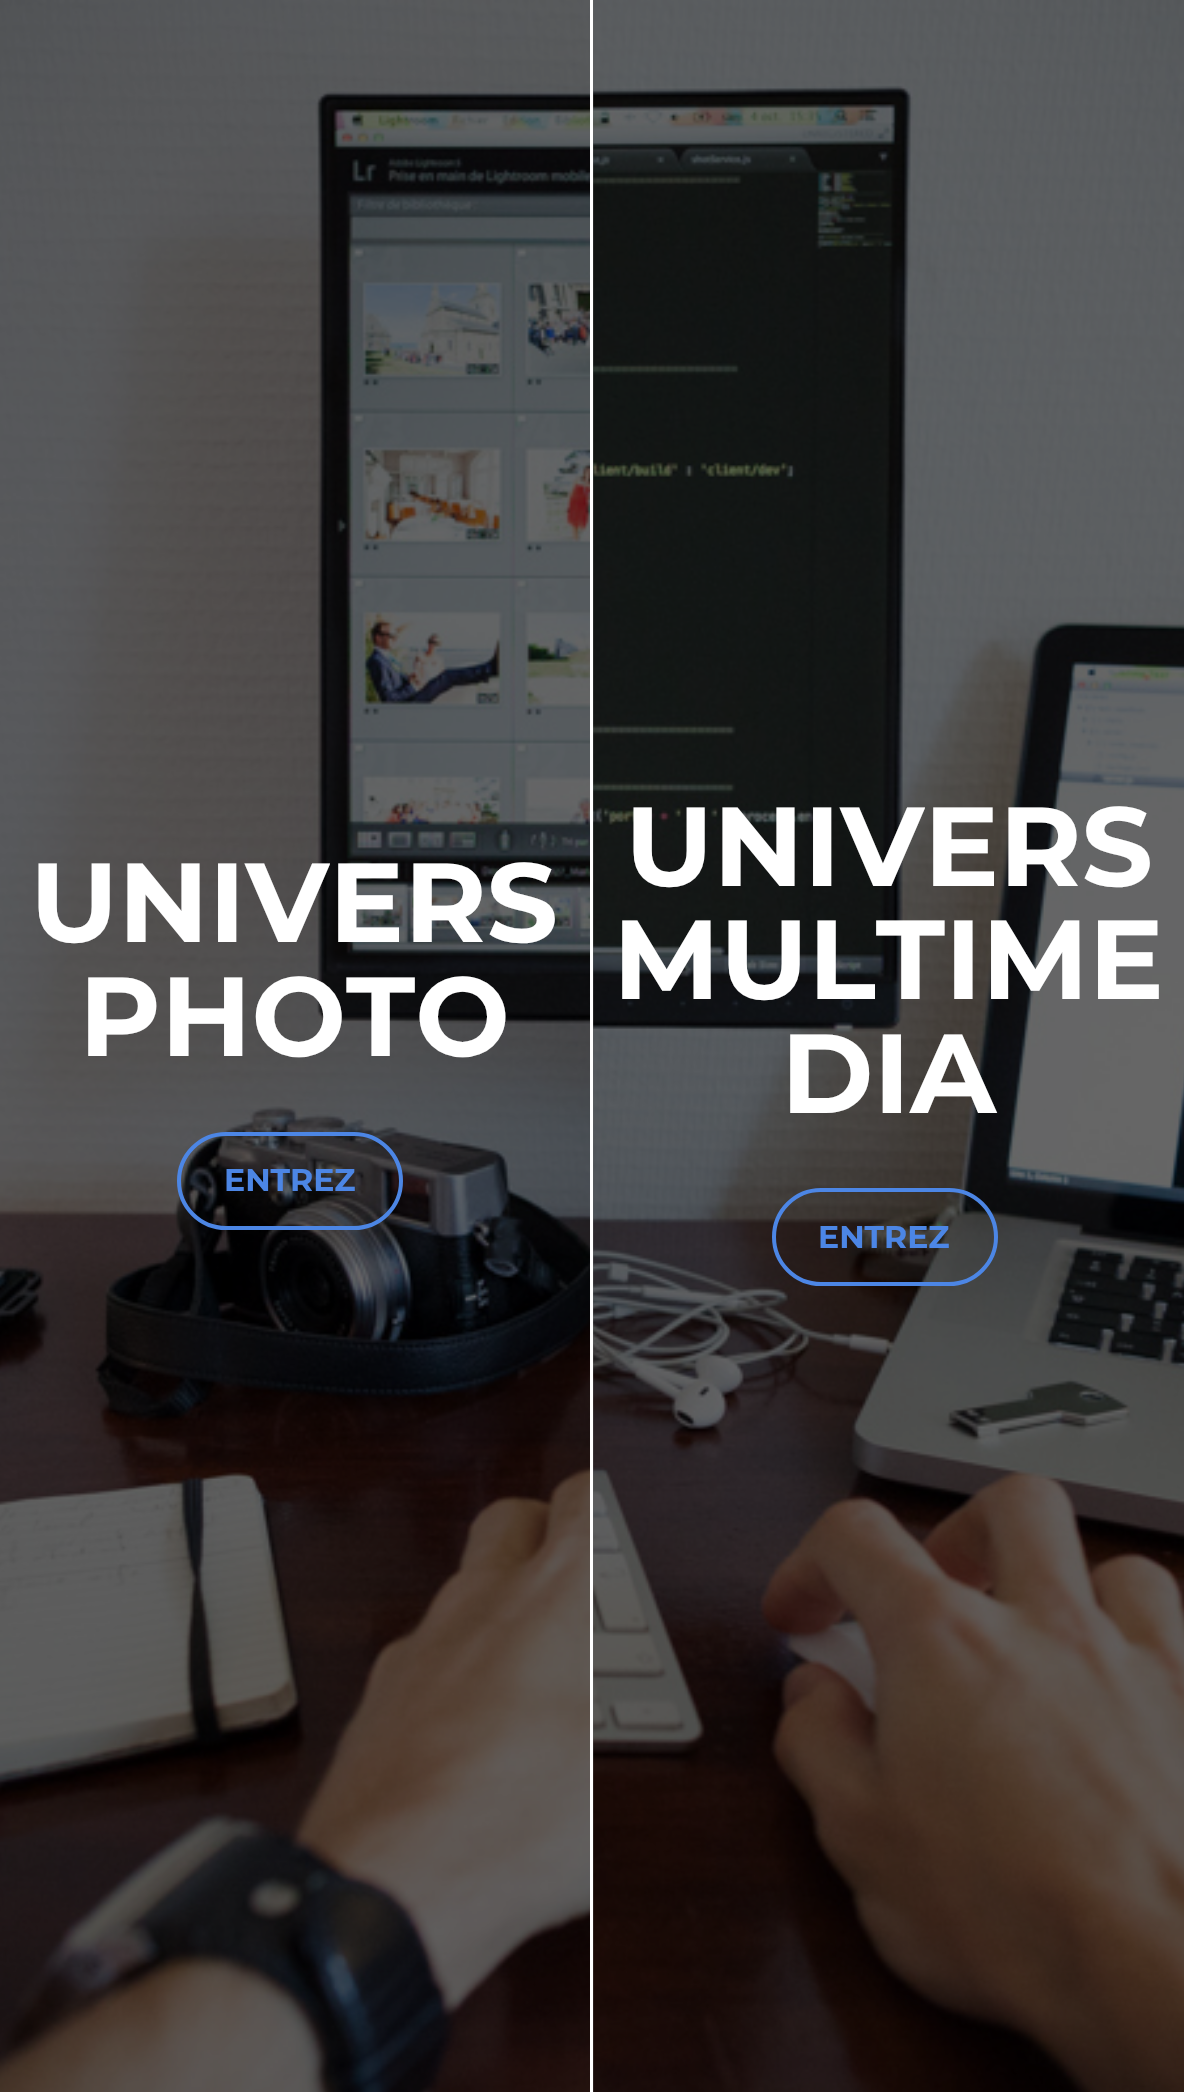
#include "include/core/SkBlurTypes.h"
#include "include/core/SkCanvas.h"
#include "include/core/SkData.h"
#include "include/core/SkFont.h"
#include "include/core/SkFontMgr.h"
#include "include/core/SkImage.h"
#include "include/core/SkMaskFilter.h"
#include "include/core/SkPaint.h"
#include "include/core/SkPathBuilder.h"
#include "include/core/SkTextBlob.h"
#include "include/effects/SkDashPathEffect.h"
#include "include/effects/SkGradientShader.h"
#include "include/utils/SkParsePath.h"

extern sk_sp<SkFontMgr> fontMgr;

static SkFont font(const char* family, int weight, float size, bool italic = false) {
    SkFontStyle style(weight, SkFontStyle::kNormal_Width,
        italic ? SkFontStyle::kItalic_Slant : SkFontStyle::kUpright_Slant);
    SkFont result(fontMgr->matchFamilyStyle(family, style), size);
    result.setSubpixel(true);
    return result;
}

static void drawLabel(SkCanvas* canvas, const char* s, float x, float y, const SkFont& font, SkColor color) {
    SkPaint ink(SkColor4f::FromColor(color));
    ink.setAntiAlias(true);
    canvas->drawString(s, x, y, font, ink);
}

static void fillRect(SkCanvas* canvas, float x, float y, float w, float h, SkColor color) {
    SkPaint ink(SkColor4f::FromColor(color));
    ink.setAntiAlias(true);
    canvas->drawRect(SkRect::MakeXYWH(x, y, w, h), ink);
}

static void drawPhoto(SkCanvas* canvas, const char* path, float x, float y, float w, float h) {
    auto image = SkImages::DeferredFromEncodedData(SkData::MakeFromFileName(path));
    canvas->drawImageRect(image, SkRect::MakeXYWH(x, y, w, h), SkSamplingOptions());
}

void draw(SkCanvas* canvas) {
    SkPaint paint;
    paint.setAntiAlias(true);
    canvas->clear(0xFFFFFFFF);
    drawPhoto(canvas, "assets/img1.png", 0, 0, 590, 2092);
    SkFont font1 = font("Montserrat", 700, 112);
    drawLabel(canvas, "UNIVERS", 30, 942, font1, 0xFFFFFFFF);
    drawLabel(canvas, "PHOTO", 79, 1056, font1, 0xFFFFFFFF);
    paint.setStroke(true);
    paint.setStrokeWidth(4);
    paint.setColor(0xFF4C86E5);
    canvas->drawRoundRect(SkRect::MakeXYWH(179, 1134, 222, 94), 47, 47, paint);
    SkFont font2 = font("Montserrat", 700, 31.5f);
    drawLabel(canvas, "ENTREZ", 224, 1191, font2, 0xFF4C86E5);
    drawPhoto(canvas, "assets/img2.png", 593, 0, 591, 2092);
    fillRect(canvas, 593, 0, 591, 2092, 0x99000000);
    drawLabel(canvas, "UNIVERS", 625, 886, font1, 0xFFFFFFFF);
    drawLabel(canvas, "MULTIME", 613, 999, font1, 0xFFFFFFFF);
    drawLabel(canvas, "DIA", 781, 1113, font1, 0xFFFFFFFF);
    canvas->drawRoundRect(SkRect::MakeXYWH(774, 1190, 222, 94), 47, 47, paint);
    drawLabel(canvas, "ENTREZ", 818, 1248, font2, 0xFF4C86E5);
}
